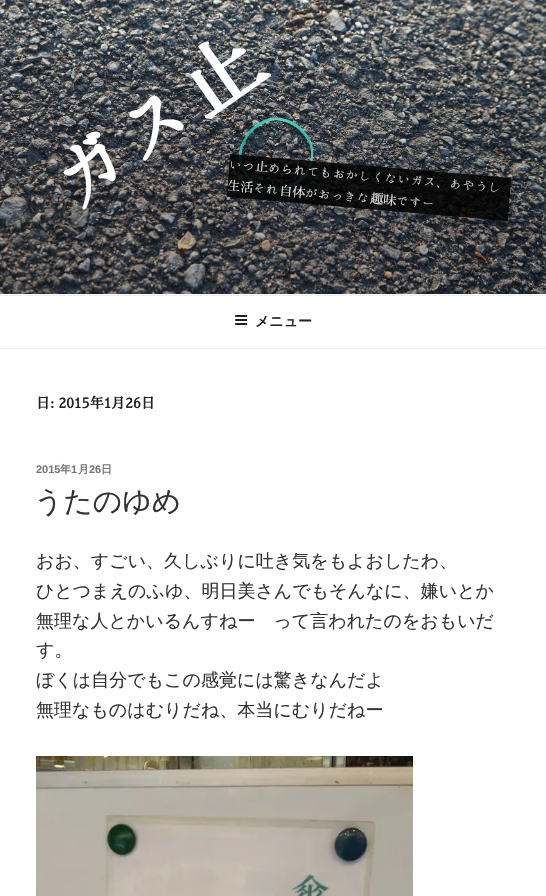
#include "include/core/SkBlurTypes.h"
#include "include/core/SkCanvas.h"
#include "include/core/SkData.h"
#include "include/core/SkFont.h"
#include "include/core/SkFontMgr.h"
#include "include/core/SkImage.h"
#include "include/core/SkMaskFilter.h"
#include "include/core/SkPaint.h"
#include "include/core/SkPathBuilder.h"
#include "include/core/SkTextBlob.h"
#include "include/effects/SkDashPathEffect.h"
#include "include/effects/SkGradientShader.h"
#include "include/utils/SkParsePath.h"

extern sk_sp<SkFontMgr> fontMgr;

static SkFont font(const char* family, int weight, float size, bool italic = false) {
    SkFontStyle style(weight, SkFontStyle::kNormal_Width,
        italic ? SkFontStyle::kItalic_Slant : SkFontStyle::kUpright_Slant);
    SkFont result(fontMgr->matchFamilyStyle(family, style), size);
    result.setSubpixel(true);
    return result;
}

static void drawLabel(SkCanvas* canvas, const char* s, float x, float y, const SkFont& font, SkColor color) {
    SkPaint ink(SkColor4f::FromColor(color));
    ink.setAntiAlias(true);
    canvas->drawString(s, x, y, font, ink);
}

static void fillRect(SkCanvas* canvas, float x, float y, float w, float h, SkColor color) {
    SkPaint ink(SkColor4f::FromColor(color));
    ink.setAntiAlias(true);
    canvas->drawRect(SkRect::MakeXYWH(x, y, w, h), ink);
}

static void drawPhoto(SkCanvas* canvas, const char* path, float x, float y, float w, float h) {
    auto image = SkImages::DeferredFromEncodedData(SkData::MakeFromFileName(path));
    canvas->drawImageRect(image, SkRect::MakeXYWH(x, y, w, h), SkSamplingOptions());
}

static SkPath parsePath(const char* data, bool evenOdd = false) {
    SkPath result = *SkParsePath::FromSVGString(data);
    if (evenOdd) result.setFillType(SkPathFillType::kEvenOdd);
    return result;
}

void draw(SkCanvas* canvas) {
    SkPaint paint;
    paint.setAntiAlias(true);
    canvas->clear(0xFFFFFFFF);
    fillRect(canvas, 0, 294, 546, 1, 0xFFFAFAFA);
    drawPhoto(canvas, "assets/img1.png", 0, 0, 546, 294);
    SkFont font1 = font("Sawarabi Mincho", 700, 80);
    canvas->save();
    canvas->rotate(-35, 206, 122);
    drawLabel(canvas, "止", 206, 122, font1, 0xFFFFFFFF);
    canvas->restore();
    SkFont font2 = font("Hannari", 700, 80);
    canvas->save();
    canvas->rotate(-35, 75, 213);
    drawLabel(canvas, "ガス", 75, 213, font2, 0xFFFFFFFF);
    canvas->restore();
    paint.setColor(0xD9000000);
    canvas->drawPath(parsePath("M230 154L511 178L508 221L227 197Z"), paint);
    SkFont font3 = font("Hannari", 400, 13);
    canvas->save();
    canvas->rotate(5, 229, 169);
    drawLabel(canvas, "いつ", 229, 169, font3, 0xFFDBDBDB);
    canvas->restore();
    SkFont font4 = font("Sawarabi Mincho", 400, 13);
    canvas->save();
    canvas->rotate(5, 255, 171);
    drawLabel(canvas, "止", 255, 171, font4, 0xFFDBDBDB);
    canvas->restore();
    canvas->save();
    canvas->rotate(5, 268, 172);
    drawLabel(canvas, "められてもおかしくないガス、あやうし", 268, 172, font3, 0xFFDBDBDB);
    canvas->restore();
    canvas->save();
    canvas->rotate(5, 227, 190);
    drawLabel(canvas, "生活", 227, 190, font4, 0xFFDBDBDB);
    canvas->restore();
    canvas->save();
    canvas->rotate(5, 253, 192);
    drawLabel(canvas, "それ", 253, 192, font3, 0xFFDBDBDB);
    canvas->restore();
    canvas->save();
    canvas->rotate(5, 279, 195);
    drawLabel(canvas, "自体", 279, 195, font4, 0xFFDBDBDB);
    canvas->restore();
    canvas->save();
    canvas->rotate(5, 305, 197);
    drawLabel(canvas, "がおっきな", 305, 197, font3, 0xFFDBDBDB);
    canvas->restore();
    canvas->save();
    canvas->rotate(5, 370, 203);
    drawLabel(canvas, "趣味", 370, 203, font4, 0xFFDBDBDB);
    canvas->restore();
    canvas->save();
    canvas->rotate(5, 396, 205);
    drawLabel(canvas, "ですー", 396, 205, font3, 0xFFDBDBDB);
    canvas->restore();
    fillRect(canvas, 0, 295, 546, 1, 0xFFEEEEEE);
    fillRect(canvas, 0, 348, 546, 1, 0xFFEEEEEE);
    drawPhoto(canvas, "assets/img2.png", 235, 315, 13, 10);
    SkFont font5 = font("WenQuanYi Zen Hei", 700, 14);
    drawLabel(canvas, "メニュー", 255, 326, font5, 0xFF222222);
    SkFont font6 = font("Sawarabi Mincho", 700, 14);
    drawLabel(canvas, "日: 2015年1月26日", 36, 408, font6, 0xFF222222);
    SkFont font7 = font("Liberation Sans", 700, 11);
    drawLabel(canvas, "2015", 36, 473, font7, 0xFF767676);
    SkFont font8 = font("WenQuanYi Zen Hei", 700, 11);
    drawLabel(canvas, "年", 60, 473, font8, 0xFF767676);
    drawLabel(canvas, "1", 71, 473, font7, 0xFF767676);
    drawLabel(canvas, "月", 78, 473, font8, 0xFF767676);
    drawLabel(canvas, "26", 89, 473, font7, 0xFF767676);
    drawLabel(canvas, "日", 101, 473, font8, 0xFF767676);
    SkFont font9 = font("WenQuanYi Zen Hei", 500, 28.75f);
    drawLabel(canvas, "うたのゆめ", 34, 511, font9, 0xFF333333);
    SkFont font10 = font("WenQuanYi Zen Hei", 500, 18);
    drawLabel(canvas, "おお、すごい、久しぶりに吐き気をもよおしたわ、", 36, 567, font10, 0xFF333333);
    drawLabel(canvas, "ひとつまえのふゆ、明日美さんでもそんなに、嫌いとか", 36, 597, font10, 0xFF333333);
    drawLabel(canvas, "無理な人とかいるんすねー　って言われたのをおもいだ", 36, 627, font10, 0xFF333333);
    drawLabel(canvas, "す。", 36, 656, font10, 0xFF333333);
    drawLabel(canvas, "ぼくは自分でもこの感覚には驚きなんだよ", 36, 686, font10, 0xFF333333);
    drawLabel(canvas, "無理なものはむりだね、本当にむりだねー", 36, 716, font10, 0xFF333333);
    drawPhoto(canvas, "assets/img3.png", 36, 756, 377, 140);
}
